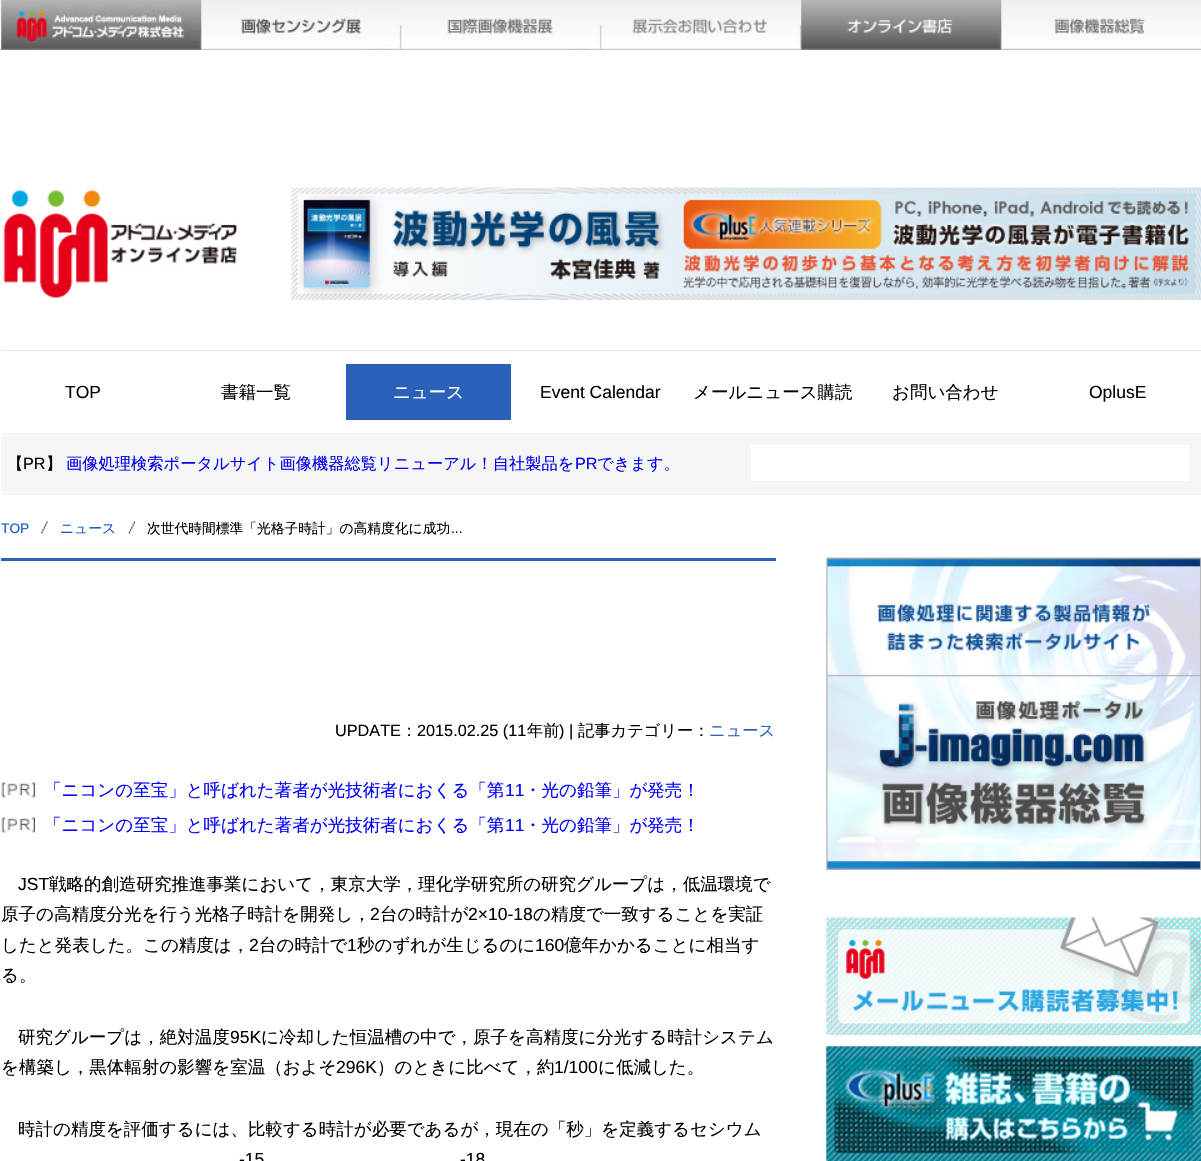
#include "include/core/SkBlurTypes.h"
#include "include/core/SkCanvas.h"
#include "include/core/SkData.h"
#include "include/core/SkFont.h"
#include "include/core/SkFontMgr.h"
#include "include/core/SkImage.h"
#include "include/core/SkMaskFilter.h"
#include "include/core/SkPaint.h"
#include "include/core/SkPathBuilder.h"
#include "include/core/SkTextBlob.h"
#include "include/effects/SkDashPathEffect.h"
#include "include/effects/SkGradientShader.h"
#include "include/utils/SkParsePath.h"

extern sk_sp<SkFontMgr> fontMgr;

static SkFont font(const char* family, int weight, float size, bool italic = false) {
    SkFontStyle style(weight, SkFontStyle::kNormal_Width,
        italic ? SkFontStyle::kItalic_Slant : SkFontStyle::kUpright_Slant);
    SkFont result(fontMgr->matchFamilyStyle(family, style), size);
    result.setSubpixel(true);
    return result;
}

static void drawLabel(SkCanvas* canvas, const char* s, float x, float y, const SkFont& font, SkColor color) {
    SkPaint ink(SkColor4f::FromColor(color));
    ink.setAntiAlias(true);
    canvas->drawString(s, x, y, font, ink);
}

static void fillRect(SkCanvas* canvas, float x, float y, float w, float h, SkColor color) {
    SkPaint ink(SkColor4f::FromColor(color));
    ink.setAntiAlias(true);
    canvas->drawRect(SkRect::MakeXYWH(x, y, w, h), ink);
}

static void drawPhoto(SkCanvas* canvas, const char* path, float x, float y, float w, float h) {
    auto image = SkImages::DeferredFromEncodedData(SkData::MakeFromFileName(path));
    canvas->drawImageRect(image, SkRect::MakeXYWH(x, y, w, h), SkSamplingOptions());
}

void draw(SkCanvas* canvas) {
    SkPaint paint;
    paint.setAntiAlias(true);
    canvas->clear(0xFFFFFFFF);
    drawPhoto(canvas, "assets/img1.png", 0, 0, 1201, 50);
    drawPhoto(canvas, "assets/img2.png", 201, 10, 999, 40);
    drawPhoto(canvas, "assets/img3.png", 1, 0, 201, 50);
    drawPhoto(canvas, "assets/img4.png", 801, 0, 201, 50);
    drawPhoto(canvas, "assets/img5.png", 3, 189, 234, 109);
    drawPhoto(canvas, "assets/img6.png", 291, 187, 910, 113);
    fillRect(canvas, 1, 350, 1200, 1, 0xFFE4E4E4);
    SkFont font1 = font("Liberation Sans", 400, 17.5f);
    drawLabel(canvas, "TOP", 65, 398, font1, 0xFF000000);
    SkFont font2 = font("WenQuanYi Zen Hei", 500, 17.5f);
    drawLabel(canvas, "書籍一覧", 221, 398, font2, 0xFF000000);
    fillRect(canvas, 346, 364, 165, 56, 0xFF2A62BA);
    drawLabel(canvas, "ニュース", 393, 398, font2, 0xFFFFFFFF);
    drawLabel(canvas, "Event Calendar", 540, 398, font1, 0xFF000000);
    drawLabel(canvas, "メールニュース購読", 693, 398, font2, 0xFF000000);
    drawLabel(canvas, "お問い合わせ", 892, 398, font2, 0xFF000000);
    drawLabel(canvas, "OplusE", 1089, 398, font1, 0xFF000000);
    fillRect(canvas, 1, 433, 1200, 62, 0xFFF5F5F5);
    SkFont font3 = font("WenQuanYi Zen Hei", 500, 16.25f);
    drawLabel(canvas, "【", 7, 469, font3, 0xFF000000);
    SkFont font4 = font("Liberation Sans", 400, 16.25f);
    drawLabel(canvas, "PR", 23, 469, font4, 0xFF000000);
    drawLabel(canvas, "】", 46, 469, font3, 0xFF000000);
    drawLabel(canvas, "画像処理検索ポータルサイト画像機器総覧リニューアル！自社製品を", 66, 469, font3, 0xFF0000EE);
    drawLabel(canvas, "PR", 575, 469, font4, 0xFF0000EE);
    drawLabel(canvas, "できます。", 597, 469, font3, 0xFF0000EE);
    fillRect(canvas, 751, 445, 438, 36, 0xFFFFFFFF);
    SkFont font5 = font("Liberation Sans", 400, 13.75f);
    drawLabel(canvas, "TOP", 1, 533, font5, 0xFF1155CC);
    drawPhoto(canvas, "assets/img7.png", 41, 521, 7, 13);
    SkFont font6 = font("WenQuanYi Zen Hei", 500, 13.75f);
    drawLabel(canvas, "ニュース", 60, 533, font6, 0xFF1155CC);
    drawPhoto(canvas, "assets/img8.png", 128, 521, 7, 13);
    drawLabel(canvas, "次世代時間標準「光格子時計」の高精度化に成功", 147, 533, font6, 0xFF000000);
    drawLabel(canvas, "...", 451, 533, font5, 0xFF000000);
    fillRect(canvas, 1, 558, 775, 3, 0xFF2A62BA);
    drawLabel(canvas, "UPDATE", 335, 736, font4, 0xFF000000);
    drawLabel(canvas, "：", 401, 736, font3, 0xFF000000);
    drawLabel(canvas, "2015.02.25 (11", 417, 736, font4, 0xFF000000);
    drawLabel(canvas, "年前", 527, 736, font3, 0xFF000000);
    drawLabel(canvas, ") |", 559, 736, font4, 0xFF000000);
    drawLabel(canvas, "記事カテゴリー：", 578, 736, font3, 0xFF000000);
    drawLabel(canvas, "ニュース", 709, 736, font3, 0xFF2A62BA);
    drawPhoto(canvas, "assets/img9.png", 1, 782, 34, 16);
    drawLabel(canvas, "「ニコンの至宝」と呼ばれた著者が光技術者におくる「第", 44, 796, font2, 0xFF0000FF);
    drawLabel(canvas, "11", 505, 796, font1, 0xFF0000FF);
    drawLabel(canvas, "・光の鉛筆」が発売！", 524, 796, font2, 0xFF0000FF);
    drawPhoto(canvas, "assets/img9.png", 1, 817, 34, 16);
    drawLabel(canvas, "「ニコンの至宝」と呼ばれた著者が光技術者におくる「第", 44, 831, font2, 0xFF0000FF);
    drawLabel(canvas, "11", 505, 831, font1, 0xFF0000FF);
    drawLabel(canvas, "・光の鉛筆」が発売！", 524, 831, font2, 0xFF0000FF);
    drawLabel(canvas, "JST", 18, 890, font1, 0xFF000000);
    drawLabel(canvas, "戦略的創造研究推進事業において，東京大学，理化学研究所の研究グループは，低温環境で", 49, 890, font2, 0xFF000000);
    drawLabel(canvas, "原子の高精度分光を行う光格子時計を開発し，", 1, 920, font2, 0xFF000000);
    drawLabel(canvas, "2", 370, 920, font1, 0xFF000000);
    drawLabel(canvas, "台の時計が", 380, 920, font2, 0xFF000000);
    drawLabel(canvas, "2×10-18", 468, 920, font1, 0xFF000000);
    drawLabel(canvas, "の精度で一致することを実証", 533, 920, font2, 0xFF000000);
    drawLabel(canvas, "したと発表した。この精度は，", 1, 951, font2, 0xFF000000);
    drawLabel(canvas, "2", 249, 951, font1, 0xFF000000);
    drawLabel(canvas, "台の時計で", 259, 951, font2, 0xFF000000);
    drawLabel(canvas, "1", 347, 951, font1, 0xFF000000);
    drawLabel(canvas, "秒のずれが生じるのに", 357, 951, font2, 0xFF000000);
    drawLabel(canvas, "160", 535, 951, font1, 0xFF000000);
    drawLabel(canvas, "億年かかることに相当す", 564, 951, font2, 0xFF000000);
    drawLabel(canvas, "る。", 1, 981, font2, 0xFF000000);
    drawLabel(canvas, "研究グループは，絶対温度", 18, 1043, font2, 0xFF000000);
    drawLabel(canvas, "95K", 230, 1043, font1, 0xFF000000);
    drawLabel(canvas, "に冷却した恒温槽の中で，原子を高精度に分光する時計システム", 261, 1043, font2, 0xFF000000);
    drawLabel(canvas, "を構築し，黒体輻射の影響を室温（およそ", 1, 1073, font2, 0xFF000000);
    drawLabel(canvas, "296K", 336, 1073, font1, 0xFF000000);
    drawLabel(canvas, "）のときに比べて，約", 377, 1073, font2, 0xFF000000);
    drawLabel(canvas, "1/100", 554, 1073, font1, 0xFF000000);
    drawLabel(canvas, "に低減した。", 598, 1073, font2, 0xFF000000);
    drawLabel(canvas, "時計の精度を評価するには、比較する時計が必要であるが，現在の「秒」を定義するセシウム", 18, 1135, font2, 0xFF000000);
    drawLabel(canvas, "-15", 239, 1165, font1, 0xFF000000);
    drawLabel(canvas, "-18", 460, 1165, font1, 0xFF000000);
    drawPhoto(canvas, "assets/img10.png", 826, 557, 375, 313);
    drawPhoto(canvas, "assets/img11.png", 826, 917, 375, 118);
    drawPhoto(canvas, "assets/img12.png", 826, 1046, 375, 115);
}
